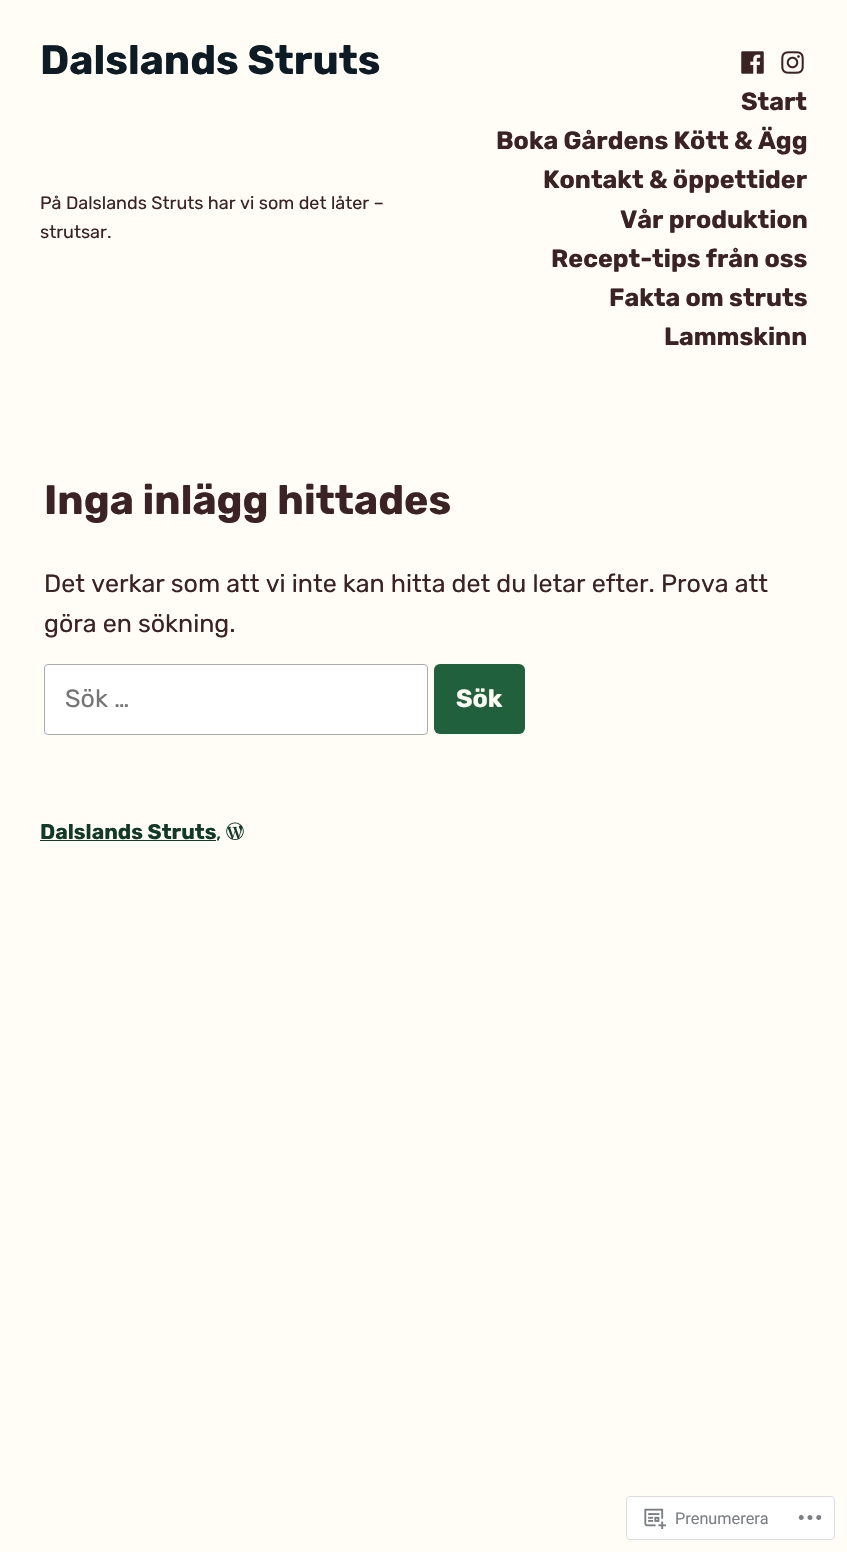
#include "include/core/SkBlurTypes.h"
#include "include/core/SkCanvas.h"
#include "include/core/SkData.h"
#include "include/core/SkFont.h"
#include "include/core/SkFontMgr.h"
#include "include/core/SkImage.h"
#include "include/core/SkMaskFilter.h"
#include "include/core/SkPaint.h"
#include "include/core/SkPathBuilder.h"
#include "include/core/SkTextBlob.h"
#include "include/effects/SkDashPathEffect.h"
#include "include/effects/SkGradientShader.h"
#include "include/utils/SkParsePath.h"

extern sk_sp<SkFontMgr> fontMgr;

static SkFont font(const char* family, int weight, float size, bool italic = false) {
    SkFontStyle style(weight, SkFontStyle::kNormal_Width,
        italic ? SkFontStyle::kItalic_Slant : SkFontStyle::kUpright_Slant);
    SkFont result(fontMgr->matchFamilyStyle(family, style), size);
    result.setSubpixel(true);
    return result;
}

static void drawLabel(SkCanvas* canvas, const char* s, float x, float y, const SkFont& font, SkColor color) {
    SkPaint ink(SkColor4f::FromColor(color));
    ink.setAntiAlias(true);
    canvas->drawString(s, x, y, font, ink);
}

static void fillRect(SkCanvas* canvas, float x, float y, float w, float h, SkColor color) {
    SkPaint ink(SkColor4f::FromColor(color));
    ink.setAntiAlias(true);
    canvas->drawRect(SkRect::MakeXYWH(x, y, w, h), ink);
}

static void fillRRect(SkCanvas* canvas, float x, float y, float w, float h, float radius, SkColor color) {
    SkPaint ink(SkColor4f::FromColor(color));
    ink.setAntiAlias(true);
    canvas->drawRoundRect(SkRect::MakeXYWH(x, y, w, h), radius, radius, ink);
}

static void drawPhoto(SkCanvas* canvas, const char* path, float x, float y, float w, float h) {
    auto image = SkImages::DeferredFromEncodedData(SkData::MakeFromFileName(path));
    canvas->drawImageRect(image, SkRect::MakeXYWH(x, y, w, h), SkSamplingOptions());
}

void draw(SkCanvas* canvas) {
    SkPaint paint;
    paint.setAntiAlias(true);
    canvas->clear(0xFFFFFDF6);
    SkFont font1 = font("Rubik", 700, 41);
    drawLabel(canvas, "Dalslands Struts", 40, 74, font1, 0xFF0D1B24);
    drawPhoto(canvas, "assets/img1.png", 741, 51, 23, 23);
    drawPhoto(canvas, "assets/img2.png", 781, 51, 23, 23);
    SkFont font2 = font("Rubik", 400, 18);
    drawLabel(canvas, "På Dalslands Struts har vi som det låter –", 40, 209, font2, 0xFF3C2323);
    drawLabel(canvas, "strutsar.", 40, 238, font2, 0xFF3C2323);
    SkFont font3 = font("Rubik", 700, 25);
    drawLabel(canvas, "Start", 741, 110, font3, 0xFF3C2323);
    drawLabel(canvas, "Boka Gårdens Kött & Ägg", 496, 149, font3, 0xFF3C2323);
    drawLabel(canvas, "Kontakt & öppettider", 543, 188, font3, 0xFF3C2323);
    drawLabel(canvas, "Vår produktion", 620, 228, font3, 0xFF3C2323);
    drawLabel(canvas, "Recept-tips från oss", 551, 267, font3, 0xFF3C2323);
    drawLabel(canvas, "Fakta om struts", 609, 306, font3, 0xFF3C2323);
    drawLabel(canvas, "Lammskinn", 664, 345, font3, 0xFF3C2323);
    drawLabel(canvas, "Inga inlägg hittades", 44, 514, font1, 0xFF3C2323);
    SkFont font4 = font("Rubik", 400, 25);
    drawLabel(canvas, "Det verkar som att vi inte kan hitta det du letar efter. Prova att", 44, 592, font4, 0xFF3C2323);
    drawLabel(canvas, "göra en sökning.", 44, 632, font4, 0xFF3C2323);
    paint.setColor(0xFFFFFFFF);
    canvas->drawRoundRect(SkRect::MakeXYWH(44.5f, 664.5f, 383, 70), 3.5f, 3.5f, paint);
    paint.setStroke(true);
    paint.setStrokeWidth(1);
    paint.setColor(0xFFAAAAAA);
    canvas->drawRoundRect(SkRect::MakeXYWH(44.5f, 664.5f, 383, 70), 3.5f, 3.5f, paint);
    drawLabel(canvas, "Sök …", 65, 707, font4, 0xFF757575);
    fillRRect(canvas, 434, 664, 91, 70, 6, 0xFF20603C);
    drawLabel(canvas, "Sök", 456, 707, font3, 0xFFFFFDF6);
    SkFont font5 = font("Rubik", 700, 21.25f);
    drawLabel(canvas, "Dalslands Struts", 40, 839, font5, 0xFF133A24);
    fillRect(canvas, 40, 840, 176, 1, 0xFF133A24);
    SkFont font6 = font("Rubik", 400, 21.25f);
    drawLabel(canvas, ",", 216, 839, font6, 0xFF133A24);
    drawPhoto(canvas, "assets/img3.png", 226, 822, 18, 18);
    paint.setStroke(false);
    paint.setColor(0xFFFFFFFF);
    canvas->drawRoundRect(SkRect::MakeXYWH(626.5f, 1496.5f, 208, 43), 3.5f, 3.5f, paint);
    paint.setStroke(true);
    paint.setColor(0xFFDDDDDE);
    canvas->drawRoundRect(SkRect::MakeXYWH(626.5f, 1496.5f, 208, 43), 3.5f, 3.5f, paint);
    drawPhoto(canvas, "assets/img4.png", 644, 1508, 22, 22);
    SkFont font7 = font("Roboto", 400, 16.25f);
    drawLabel(canvas, "Prenumerera", 675, 1524, font7, 0xFF7B7F84);
    drawPhoto(canvas, "assets/img5.png", 798, 1515, 24, 5);
}
